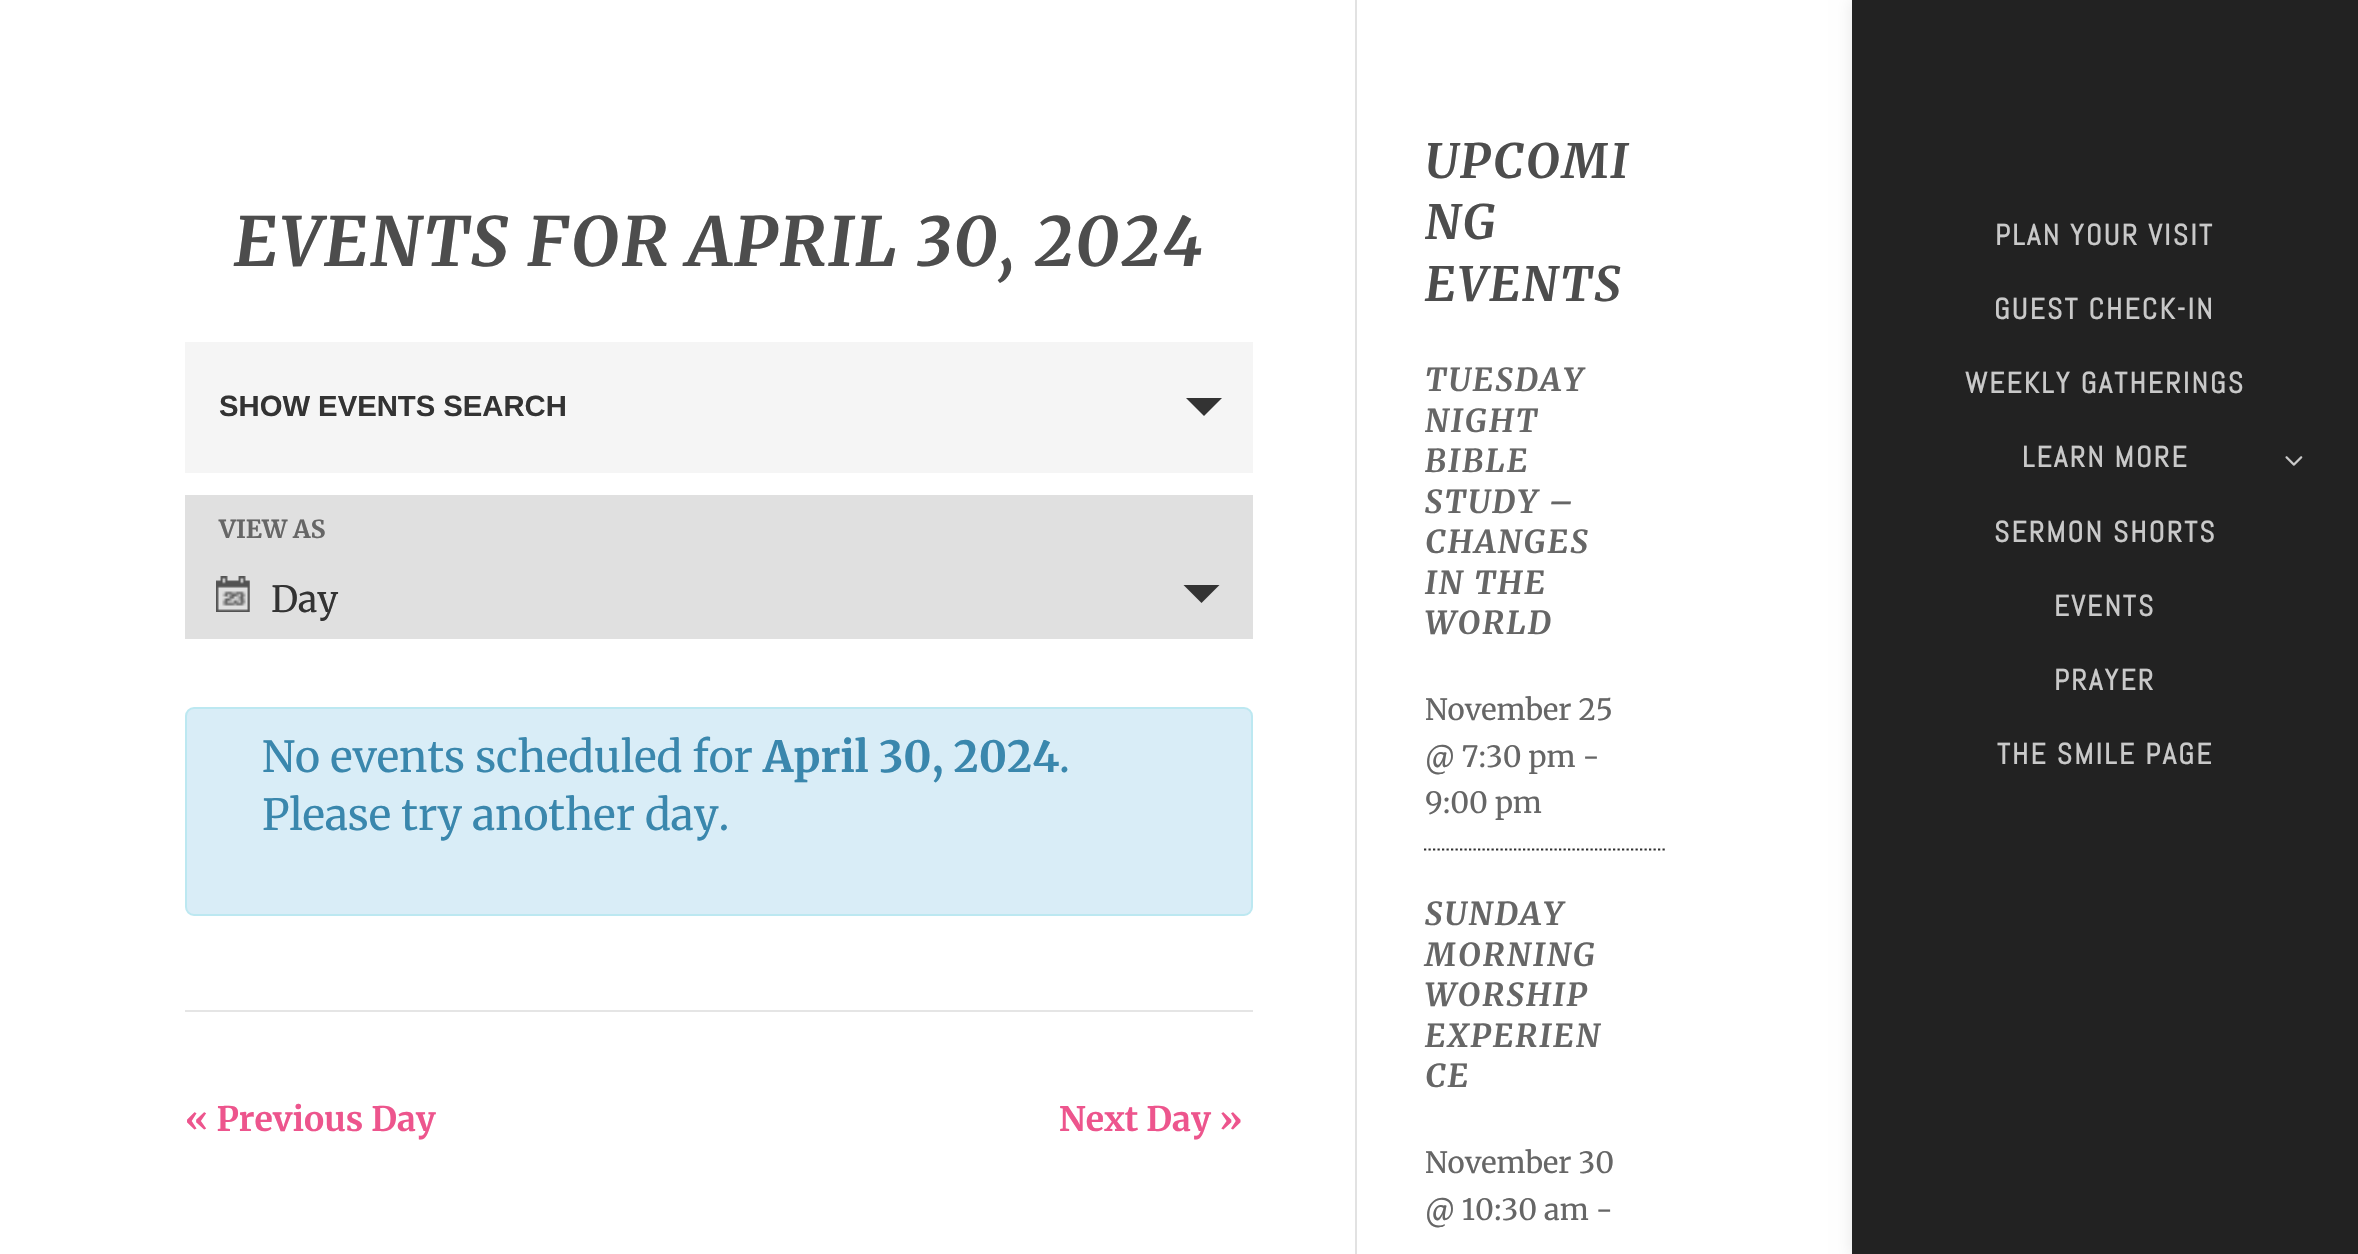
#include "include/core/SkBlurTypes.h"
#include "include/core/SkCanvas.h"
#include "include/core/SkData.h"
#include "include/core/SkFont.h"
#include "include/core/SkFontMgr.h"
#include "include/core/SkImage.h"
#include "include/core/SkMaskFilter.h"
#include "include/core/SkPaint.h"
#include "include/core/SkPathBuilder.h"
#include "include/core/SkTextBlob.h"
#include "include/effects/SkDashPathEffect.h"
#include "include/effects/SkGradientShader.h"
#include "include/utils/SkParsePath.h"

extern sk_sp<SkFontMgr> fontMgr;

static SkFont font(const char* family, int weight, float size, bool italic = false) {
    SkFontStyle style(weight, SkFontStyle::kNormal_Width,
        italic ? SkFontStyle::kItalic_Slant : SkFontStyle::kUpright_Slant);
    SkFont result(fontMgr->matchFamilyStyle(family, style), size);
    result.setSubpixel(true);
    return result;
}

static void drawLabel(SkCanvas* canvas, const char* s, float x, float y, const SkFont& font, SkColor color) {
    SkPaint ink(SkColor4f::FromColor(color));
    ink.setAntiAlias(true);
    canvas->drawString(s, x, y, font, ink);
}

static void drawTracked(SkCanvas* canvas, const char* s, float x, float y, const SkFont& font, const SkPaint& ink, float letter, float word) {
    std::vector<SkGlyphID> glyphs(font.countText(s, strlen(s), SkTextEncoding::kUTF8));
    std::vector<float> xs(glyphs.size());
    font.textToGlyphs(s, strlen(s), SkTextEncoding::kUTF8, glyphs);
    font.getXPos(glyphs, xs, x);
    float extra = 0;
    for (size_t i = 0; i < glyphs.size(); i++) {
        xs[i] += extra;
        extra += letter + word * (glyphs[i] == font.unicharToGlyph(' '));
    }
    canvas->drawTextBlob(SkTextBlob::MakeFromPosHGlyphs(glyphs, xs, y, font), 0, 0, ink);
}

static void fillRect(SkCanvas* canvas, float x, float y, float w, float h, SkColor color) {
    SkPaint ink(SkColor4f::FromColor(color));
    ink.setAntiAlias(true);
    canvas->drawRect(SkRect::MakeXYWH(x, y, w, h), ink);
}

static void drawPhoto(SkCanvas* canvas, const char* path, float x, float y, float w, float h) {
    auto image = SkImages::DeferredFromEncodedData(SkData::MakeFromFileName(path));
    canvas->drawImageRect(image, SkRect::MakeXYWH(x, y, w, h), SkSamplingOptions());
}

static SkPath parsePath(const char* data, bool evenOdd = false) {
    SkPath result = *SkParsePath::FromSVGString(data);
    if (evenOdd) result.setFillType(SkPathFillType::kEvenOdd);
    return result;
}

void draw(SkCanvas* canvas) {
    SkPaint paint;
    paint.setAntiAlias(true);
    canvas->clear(0xFFFFFFFF);
    fillRect(canvas, 1355, 0, 2, 1254, 0xFFE2E2E2);
    SkFont font1 = font("Merriweather", 700, 67.5f, true);
    paint.setColor(0xFF4D4D4D);
    drawTracked(canvas, "EVENTS FOR APRIL 30, 2024", 234, 266, font1, paint, 2.25f, 0);
    fillRect(canvas, 185, 342, 1068, 131, 0xFFF5F5F5);
    SkFont font2 = font("Liberation Sans", 700, 29.25f);
    drawLabel(canvas, "SHOW EVENTS SEARCH", 219, 416, font2, 0xFF333333);
    paint.setColor(0xFF333333);
    canvas->drawPath(parsePath("M1186 398H1222L1204 416Z"), paint);
    fillRect(canvas, 185, 495, 1068, 144, 0xFFE0E0E0);
    SkFont font3 = font("Merriweather", 700, 24.75f);
    drawLabel(canvas, "VIEW AS", 219, 538, font3, 0xFF666666);
    drawPhoto(canvas, "assets/img1.png", 216, 576, 34, 36);
    SkFont font4 = font("Merriweather", 400, 36);
    drawLabel(canvas, "Day", 271, 612, font4, 0xFF333333);
    canvas->drawPath(parsePath("M1183.5 585H1219.5L1201.5 603Z"), paint);
    paint.setColor(0xFFD9EDF7);
    canvas->drawRoundRect(SkRect::MakeXYWH(186, 708, 1066, 207), 8, 8, paint);
    paint.setStroke(true);
    paint.setStrokeWidth(2);
    paint.setColor(0xFFBCE8F1);
    canvas->drawRoundRect(SkRect::MakeXYWH(186, 708, 1066, 207), 8, 8, paint);
    SkFont font5 = font("Merriweather", 400, 42.75f);
    drawLabel(canvas, "No events scheduled for", 262, 772, font5, 0xFF3A87AD);
    SkFont font6 = font("Merriweather", 700, 42.75f);
    drawLabel(canvas, "April 30, 2024", 763, 772, font6, 0xFF3A87AD);
    drawLabel(canvas, ".", 1059, 772, font5, 0xFF3A87AD);
    drawLabel(canvas, "Please try another day.", 262, 830, font5, 0xFF3A87AD);
    fillRect(canvas, 185, 1010, 1068, 2, 0xFFE5E5E5);
    SkFont font7 = font("Merriweather", 700, 33.75f);
    drawLabel(canvas, "« Previous Day", 185, 1131, font7, 0xFFED558D);
    drawLabel(canvas, "Next Day »", 1059, 1131, font7, 0xFFED558D);
    SkFont font8 = font("Merriweather", 700, 47.25f, true);
    paint.setStroke(false);
    paint.setColor(0xFF4D4D4D);
    drawTracked(canvas, "UPCOMI", 1425, 178, font8, paint, 2.25f, 0);
    drawTracked(canvas, "NG", 1425, 239, font8, paint, 2.25f, 0);
    drawTracked(canvas, "EVENTS", 1425, 301, font8, paint, 2.25f, 0);
    paint.setStroke(true);
    paint.setStrokeWidth(2.2f);
    paint.setColor(0xFF2F2F2F);
    paint.setPathEffect(SkDashPathEffect::Make({{2.25f, 2.25f}}, 0));
    canvas->drawPath(parsePath("M1424 849.5H1667"), paint);
    paint.setPathEffect(nullptr);
    SkFont font9 = font("Merriweather", 700, 31.5f, true);
    paint.setStroke(false);
    paint.setColor(0xFF666666);
    drawTracked(canvas, "TUESDAY", 1425, 391, font9, paint, 2.25f, 0);
    drawTracked(canvas, "NIGHT", 1425, 432, font9, paint, 2.25f, 0);
    drawTracked(canvas, "BIBLE", 1425, 472, font9, paint, 2.25f, 0);
    drawTracked(canvas, "STUDY –", 1425, 513, font9, paint, 2.25f, 0);
    drawTracked(canvas, "CHANGES", 1425, 553, font9, paint, 2.25f, 0);
    drawTracked(canvas, "IN THE", 1425, 594, font9, paint, 2.25f, 0);
    drawTracked(canvas, "WORLD", 1425, 634, font9, paint, 2.25f, 0);
    SkFont font10 = font("Merriweather", 400, 29.25f);
    drawLabel(canvas, "November 25", 1425, 720, font10, 0xFF666666);
    drawLabel(canvas, "@ 7:30 pm -", 1425, 767, font10, 0xFF666666);
    drawLabel(canvas, "9:00 pm", 1425, 813, font10, 0xFF666666);
    drawTracked(canvas, "SUNDAY", 1425, 925, font9, paint, 2.25f, 0);
    drawTracked(canvas, "MORNING", 1425, 966, font9, paint, 2.25f, 0);
    drawTracked(canvas, "WORSHIP", 1425, 1006, font9, paint, 2.25f, 0);
    drawTracked(canvas, "EXPERIEN", 1425, 1047, font9, paint, 2.25f, 0);
    drawTracked(canvas, "CE", 1425, 1087, font9, paint, 2.25f, 0);
    drawLabel(canvas, "November 30", 1425, 1173, font10, 0xFF666666);
    drawLabel(canvas, "@ 10:30 am -", 1425, 1220, font10, 0xFF666666);
    paint.setColor(0x1A000000);
    paint.setMaskFilter(SkMaskFilter::MakeBlur(kNormal_SkBlurStyle, 8));
    canvas->drawRect(SkRect::MakeXYWH(1852, 0, 506, 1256), paint);
    paint.setMaskFilter(nullptr);
    fillRect(canvas, 1852, 0, 506, 1254, 0xFF222222);
    SkFont font11 = font("Abel", 700, 29.25f);
    paint.setColor(0xFFC9C9C9);
    drawTracked(canvas, "PLAN YOUR VISIT", 1995, 245, font11, paint, 2.25f, 0);
    drawTracked(canvas, "GUEST CHECK-IN", 1994, 319, font11, paint, 2.25f, 0);
    drawTracked(canvas, "WEEKLY GATHERINGS", 1965, 393, font11, paint, 2.25f, 0);
    drawTracked(canvas, "LEARN MORE", 2022, 467, font11, paint, 2.25f, 0);
    drawPhoto(canvas, "assets/img2.png", 2285, 456, 18, 10);
    drawTracked(canvas, "SERMON SHORTS", 1994, 542, font11, paint, 2.25f, 0);
    drawTracked(canvas, "EVENTS", 2054, 616, font11, paint, 2.25f, 0);
    drawTracked(canvas, "PRAYER", 2054, 690, font11, paint, 2.25f, 0);
    drawTracked(canvas, "THE SMILE PAGE", 1997, 764, font11, paint, 2.25f, 0);
}
